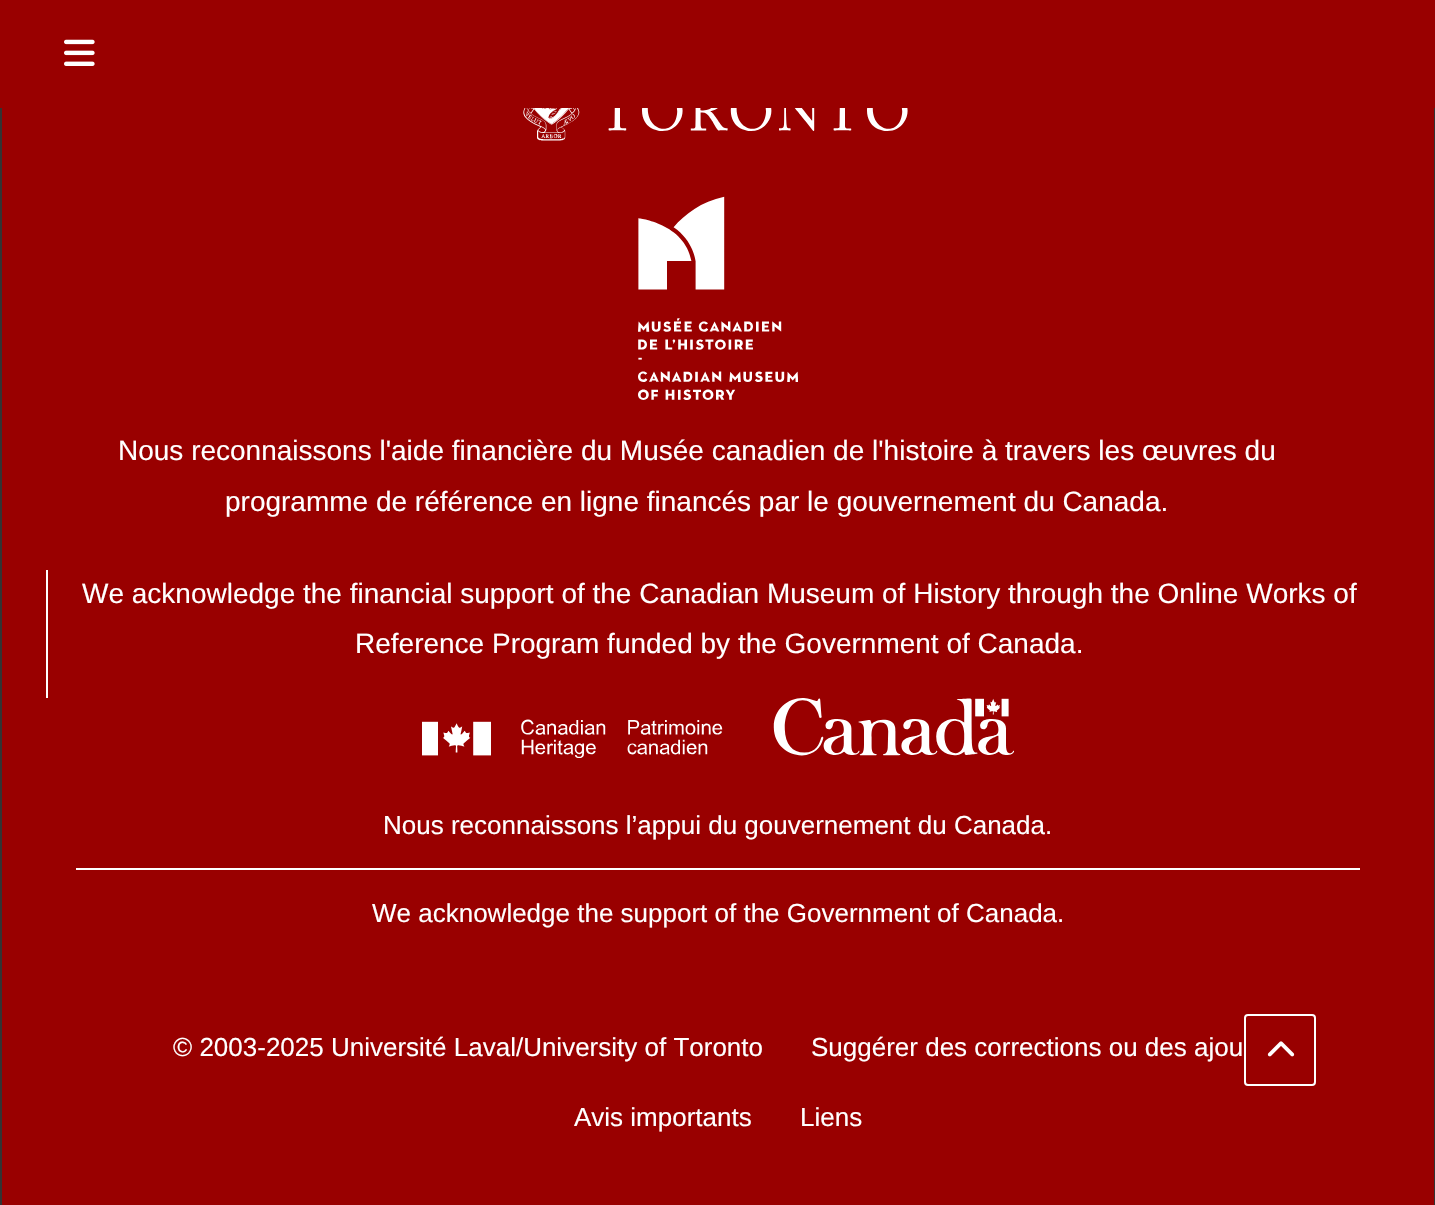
#include "include/core/SkBlurTypes.h"
#include "include/core/SkCanvas.h"
#include "include/core/SkData.h"
#include "include/core/SkFont.h"
#include "include/core/SkFontMgr.h"
#include "include/core/SkImage.h"
#include "include/core/SkMaskFilter.h"
#include "include/core/SkPaint.h"
#include "include/core/SkPathBuilder.h"
#include "include/core/SkTextBlob.h"
#include "include/effects/SkDashPathEffect.h"
#include "include/effects/SkGradientShader.h"
#include "include/utils/SkParsePath.h"

extern sk_sp<SkFontMgr> fontMgr;

static SkFont font(const char* family, int weight, float size, bool italic = false) {
    SkFontStyle style(weight, SkFontStyle::kNormal_Width,
        italic ? SkFontStyle::kItalic_Slant : SkFontStyle::kUpright_Slant);
    SkFont result(fontMgr->matchFamilyStyle(family, style), size);
    result.setSubpixel(true);
    return result;
}

static void drawLabel(SkCanvas* canvas, const char* s, float x, float y, const SkFont& font, SkColor color) {
    SkPaint ink(SkColor4f::FromColor(color));
    ink.setAntiAlias(true);
    canvas->drawString(s, x, y, font, ink);
}

static void fillRect(SkCanvas* canvas, float x, float y, float w, float h, SkColor color) {
    SkPaint ink(SkColor4f::FromColor(color));
    ink.setAntiAlias(true);
    canvas->drawRect(SkRect::MakeXYWH(x, y, w, h), ink);
}

static void drawPhoto(SkCanvas* canvas, const char* path, float x, float y, float w, float h) {
    auto image = SkImages::DeferredFromEncodedData(SkData::MakeFromFileName(path));
    canvas->drawImageRect(image, SkRect::MakeXYWH(x, y, w, h), SkSamplingOptions());
}

void draw(SkCanvas* canvas) {
    SkPaint paint;
    paint.setAntiAlias(true);
    canvas->clear(0xFF990000);
    drawPhoto(canvas, "assets/img1.png", 64, 39, 31, 27);
    paint.setStroke(true);
    paint.setStrokeWidth(2);
    paint.setColor(0xFFFFFFFF);
    canvas->drawRoundRect(SkRect::MakeXYWH(1245, 1015, 70, 70), 3, 3, paint);
    drawPhoto(canvas, "assets/img2.png", 1267, 1041, 28, 16);
    fillRect(canvas, 1434, 108, 1, 1097, 0xFF333333);
    fillRect(canvas, 0, 108, 2, 1097, 0xFF333333);
    drawPhoto(canvas, "assets/img3.png", 523, 108, 385, 33);
    drawPhoto(canvas, "assets/img4.png", 638, 196, 160, 204);
    SkFont font1 = font("Liberation Sans", 400, 28);
    drawLabel(canvas, "Nous reconnaissons l'aide financière du Musée canadien de l'histoire à travers les œuvres du", 118, 460, font1, 0xFFFFFFFF);
    drawLabel(canvas, "programme de référence en ligne financés par le gouvernement du Canada.", 225, 511, font1, 0xFFFFFFFF);
    fillRect(canvas, 46, 570, 2, 128, 0xFFFFFFFF);
    drawLabel(canvas, "We acknowledge the financial support of the Canadian Museum of History through the Online Works of", 82, 603, font1, 0xFFFFFFFF);
    drawLabel(canvas, "Reference Program funded by the Government of Canada.", 355, 653, font1, 0xFFFFFFFF);
    drawPhoto(canvas, "assets/img5.png", 422, 698, 592, 60);
    SkFont font2 = font("Liberation Sans", 400, 26);
    drawLabel(canvas, "Nous reconnaissons l’appui du gouvernement du Canada.", 383, 834, font2, 0xFFFFFFFF);
    fillRect(canvas, 76, 868, 1284, 2, 0xFFFFFFFF);
    drawLabel(canvas, "We acknowledge the support of the Government of Canada.", 372, 922, font2, 0xFFFFFFFF);
    drawLabel(canvas, "© 2003-2025 Université Laval/University of Toronto", 173, 1056, font2, 0xFFFFFFFF);
    drawLabel(canvas, "Suggérer des corrections ou des ajou", 811, 1056, font2, 0xFFFFFFFF);
    drawLabel(canvas, "Avis importants", 574, 1126, font2, 0xFFFFFFFF);
    drawLabel(canvas, "Liens", 800, 1126, font2, 0xFFFFFFFF);
}
